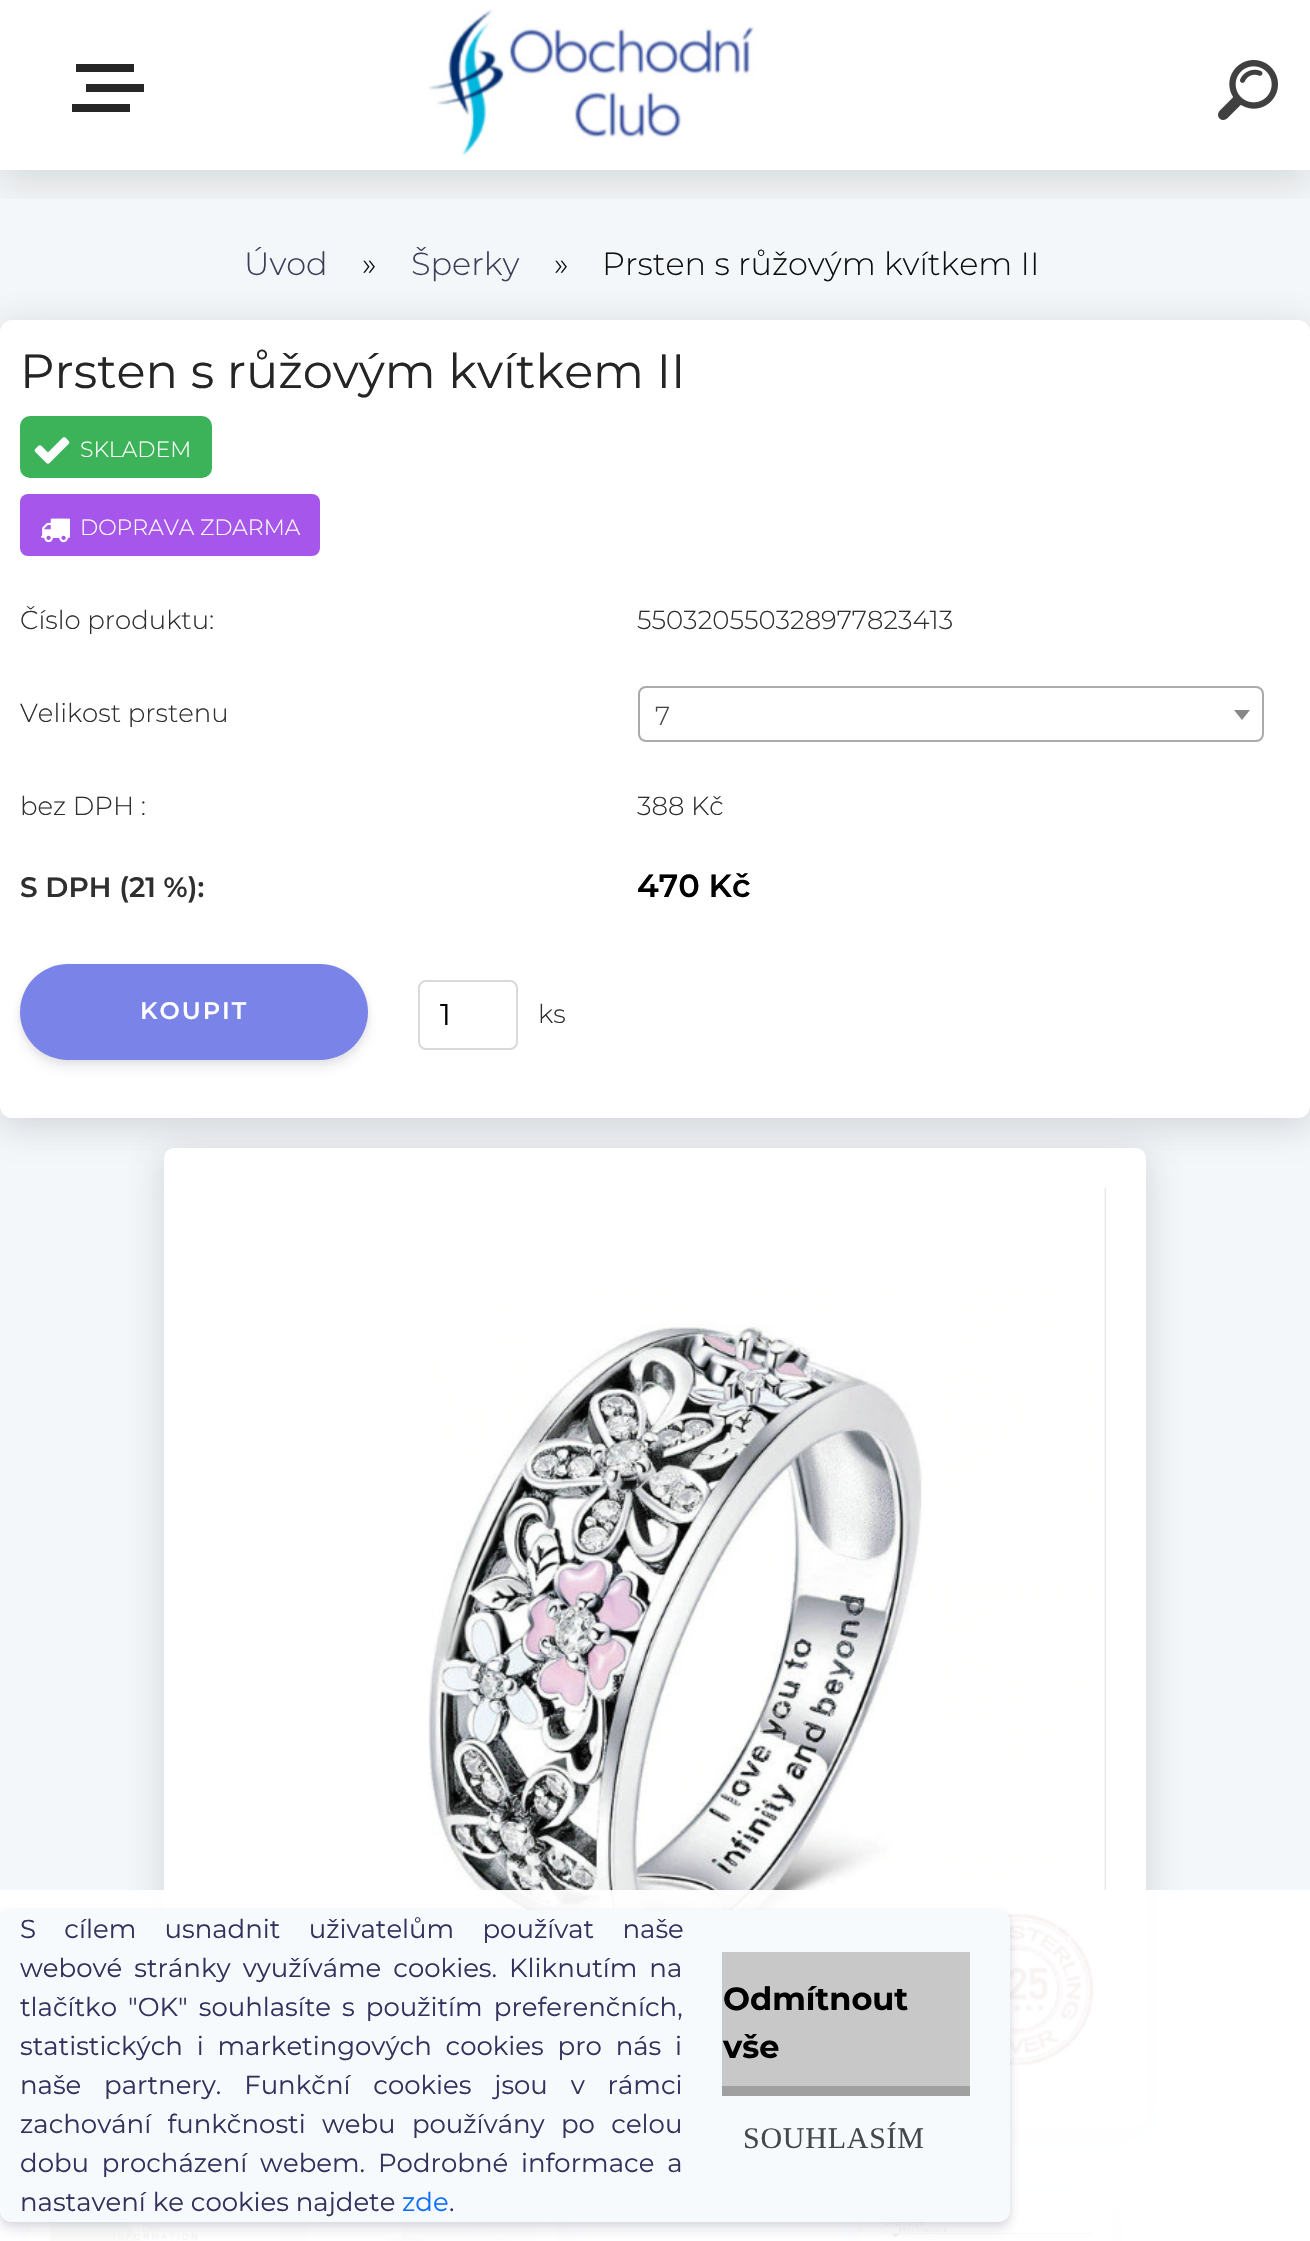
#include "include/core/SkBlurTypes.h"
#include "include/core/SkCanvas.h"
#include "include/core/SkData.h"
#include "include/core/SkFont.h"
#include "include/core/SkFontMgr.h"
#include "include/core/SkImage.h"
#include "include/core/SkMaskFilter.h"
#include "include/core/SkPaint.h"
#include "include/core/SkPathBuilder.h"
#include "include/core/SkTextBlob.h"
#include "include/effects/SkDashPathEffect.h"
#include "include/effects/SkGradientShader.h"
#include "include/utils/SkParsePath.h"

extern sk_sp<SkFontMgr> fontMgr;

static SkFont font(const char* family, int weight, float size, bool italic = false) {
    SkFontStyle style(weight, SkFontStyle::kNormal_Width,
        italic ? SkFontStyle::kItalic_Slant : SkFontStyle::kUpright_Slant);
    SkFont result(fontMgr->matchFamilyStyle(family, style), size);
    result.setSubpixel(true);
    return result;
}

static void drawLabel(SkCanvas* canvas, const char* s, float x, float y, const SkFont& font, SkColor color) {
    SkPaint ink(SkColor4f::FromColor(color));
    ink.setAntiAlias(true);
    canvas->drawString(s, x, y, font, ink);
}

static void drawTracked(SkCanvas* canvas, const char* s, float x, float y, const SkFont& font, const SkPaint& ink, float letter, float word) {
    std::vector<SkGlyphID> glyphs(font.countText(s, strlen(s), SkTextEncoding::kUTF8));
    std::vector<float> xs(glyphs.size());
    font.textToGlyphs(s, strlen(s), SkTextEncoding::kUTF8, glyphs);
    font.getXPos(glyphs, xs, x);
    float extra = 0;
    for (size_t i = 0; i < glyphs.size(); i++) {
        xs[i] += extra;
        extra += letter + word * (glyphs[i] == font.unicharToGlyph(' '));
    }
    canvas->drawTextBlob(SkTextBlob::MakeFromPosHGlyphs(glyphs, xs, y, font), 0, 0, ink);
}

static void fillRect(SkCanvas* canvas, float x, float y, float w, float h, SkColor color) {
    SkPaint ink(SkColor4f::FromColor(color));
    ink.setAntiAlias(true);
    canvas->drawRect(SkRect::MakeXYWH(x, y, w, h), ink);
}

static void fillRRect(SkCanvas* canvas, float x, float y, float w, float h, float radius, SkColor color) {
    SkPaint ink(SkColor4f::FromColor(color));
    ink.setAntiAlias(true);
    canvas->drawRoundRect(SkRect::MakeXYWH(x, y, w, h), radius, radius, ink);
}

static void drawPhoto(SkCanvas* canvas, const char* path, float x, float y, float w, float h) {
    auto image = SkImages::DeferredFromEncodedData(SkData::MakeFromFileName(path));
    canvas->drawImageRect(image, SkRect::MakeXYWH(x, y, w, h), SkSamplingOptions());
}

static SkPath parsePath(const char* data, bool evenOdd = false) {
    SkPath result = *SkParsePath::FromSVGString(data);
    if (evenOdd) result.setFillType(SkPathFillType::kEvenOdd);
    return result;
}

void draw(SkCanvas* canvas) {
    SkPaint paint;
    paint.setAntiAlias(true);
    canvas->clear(0xFFFFFFFF);
    fillRect(canvas, 0, 170, 1310, 2071, 0xFFF4F7F9);
    canvas->save();
    canvas->clipRect(SkRect::MakeXYWH(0, 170, 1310, 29));
    paint.setColor(0x1A000000);
    paint.setMaskFilter(SkMaskFilter::MakeBlur(kNormal_SkBlurStyle, 16));
    canvas->drawRect(SkRect::MakeXYWH(0, 16, 1310, 170), paint);
    paint.setMaskFilter(nullptr);
    canvas->restore();
    fillRect(canvas, 76, 64, 58, 8, 0xFF262626);
    fillRect(canvas, 86, 84, 58, 8, 0xFF262626);
    fillRect(canvas, 72, 104, 58, 8, 0xFF262626);
    drawPhoto(canvas, "assets/img1.png", 428, 9, 328, 149);
    drawPhoto(canvas, "assets/img2.png", 1218, 60, 60, 60);
    SkFont font1 = font("Montserrat", 300, 32);
    drawLabel(canvas, "Úvod", 244, 275, font1, 0xFF3F3D59);
    drawLabel(canvas, "»", 362, 275, font1, 0xFF101010);
    drawLabel(canvas, "Šperky", 411, 275, font1, 0xFF3F3D59);
    drawLabel(canvas, "»", 554, 275, font1, 0xFF101010);
    drawLabel(canvas, "Prsten s růžovým kvítkem II", 602, 275, font1, 0xFF101010);
    paint.setColor(0x12000000);
    paint.setMaskFilter(SkMaskFilter::MakeBlur(kNormal_SkBlurStyle, 15));
    canvas->drawRoundRect(SkRect::MakeXYWH(0, 330, 1310, 798), 12, 12, paint);
    paint.setMaskFilter(nullptr);
    paint.setColor(0x1A32325D);
    paint.setMaskFilter(SkMaskFilter::MakeBlur(kNormal_SkBlurStyle, 20));
    canvas->drawRoundRect(SkRect::MakeXYWH(0, 324, 1310, 798), 12, 12, paint);
    paint.setMaskFilter(nullptr);
    fillRRect(canvas, 0, 320, 1310, 798, 12, 0xFFFFFFFF);
    SkFont font2 = font("Montserrat", 400, 48);
    drawLabel(canvas, "Prsten s růžovým kvítkem II", 20, 388, font2, 0xFF252527);
    fillRRect(canvas, 20, 416, 192, 62, 10, 0xFF3CB359);
    drawPhoto(canvas, "assets/img3.png", 34, 437, 36, 27);
    SkFont font3 = font("Montserrat", 300, 22);
    drawLabel(canvas, "SKLADEM", 80, 457, font3, 0xFFFFFFFF);
    fillRRect(canvas, 20, 494, 300, 62, 8, 0xFFA756EC);
    drawPhoto(canvas, "assets/img4.png", 41, 518, 29, 25);
    drawLabel(canvas, "DOPRAVA ZDARMA", 80, 535, font3, 0xFFFFFFFF);
    SkFont font4 = font("Montserrat", 300, 26);
    drawLabel(canvas, "Číslo produktu:", 20, 629, font4, 0xFF2F2F2F);
    drawLabel(canvas, "550320550328977823413", 637, 629, font4, 0xFF2F2F2F);
    drawLabel(canvas, "Velikost prstenu", 20, 722, font4, 0xFF2F2F2F);
    paint.setStroke(true);
    paint.setStrokeWidth(2);
    paint.setColor(0xFFAAAAAA);
    canvas->drawRoundRect(SkRect::MakeXYWH(639, 687, 624, 54), 7, 7, paint);
    drawLabel(canvas, "7", 655, 725, font4, 0xFF444444);
    paint.setStroke(false);
    paint.setColor(0xFF888888);
    canvas->drawPath(parsePath("M1234 710H1250L1242 720Z"), paint);
    drawLabel(canvas, "bez DPH :", 20, 815, font4, 0xFF2F2F2F);
    drawLabel(canvas, "388 Kč", 637, 815, font4, 0xFF2F2F2F);
    SkFont font5 = font("Montserrat", 600, 28);
    drawLabel(canvas, "S DPH (21 %):", 20, 897, font5, 0xFF2F2F2F);
    SkFont font6 = font("Montserrat", 600, 32);
    drawLabel(canvas, "470 Kč", 637, 897, font6, 0xFF000000);
    paint.setColor(0x14262626);
    paint.setMaskFilter(SkMaskFilter::MakeBlur(kNormal_SkBlurStyle, 3));
    canvas->drawRoundRect(SkRect::MakeXYWH(20, 966, 348, 96), 48, 48, paint);
    paint.setMaskFilter(nullptr);
    paint.setColor(0x1C515175);
    paint.setMaskFilter(SkMaskFilter::MakeBlur(kNormal_SkBlurStyle, 6));
    canvas->drawRoundRect(SkRect::MakeXYWH(20, 972, 348, 96), 48, 48, paint);
    paint.setMaskFilter(nullptr);
    fillRRect(canvas, 20, 964, 348, 96, 48, 0xFF7A84E8);
    SkFont font7 = font("Montserrat", 600, 24);
    paint.setColor(0xFFFFFFFF);
    drawTracked(canvas, "KOUPIT", 140, 1019, font7, paint, 2, 0);
    paint.setStroke(true);
    paint.setColor(0xFFD9D9D9);
    canvas->drawRoundRect(SkRect::MakeXYWH(419, 981, 98, 68), 7, 7, paint);
    SkFont font8 = font("Montserrat", 400, 30);
    drawLabel(canvas, "1", 440, 1025, font8, 0xFF000000);
    drawLabel(canvas, "ks", 538, 1023, font4, 0xFF2F2F2F);
    paint.setStroke(false);
    paint.setColor(0x1A32325D);
    paint.setMaskFilter(SkMaskFilter::MakeBlur(kNormal_SkBlurStyle, 20));
    canvas->drawRoundRect(SkRect::MakeXYWH(164, 1152, 982, 978), 10, 10, paint);
    paint.setMaskFilter(nullptr);
    paint.setColor(0x12000000);
    paint.setMaskFilter(SkMaskFilter::MakeBlur(kNormal_SkBlurStyle, 15));
    canvas->drawRoundRect(SkRect::MakeXYWH(164, 1158, 982, 978), 10, 10, paint);
    paint.setMaskFilter(nullptr);
    fillRRect(canvas, 164, 1148, 982, 978, 10, 0xFFFFFFFF);
    drawPhoto(canvas, "assets/img5.png", 428, 1188, 678, 898);
    paint.setMaskFilter(SkMaskFilter::MakeBlur(kNormal_SkBlurStyle, 15));
    canvas->drawRoundRect(SkRect::MakeXYWH(30, 2204, 250, 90), 8, 8, paint);
    paint.setMaskFilter(nullptr);
    paint.setColor(0x1A32325D);
    paint.setMaskFilter(SkMaskFilter::MakeBlur(kNormal_SkBlurStyle, 20));
    canvas->drawRoundRect(SkRect::MakeXYWH(30, 2198, 250, 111), 8, 8, paint);
    paint.setMaskFilter(nullptr);
    fillRRect(canvas, 30, 2194, 250, 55, 8, 0xFFFFFFFF);
    drawPhoto(canvas, "assets/img6.png", 50, 2214, 210, 27);
    paint.setColor(0x12000000);
    paint.setMaskFilter(SkMaskFilter::MakeBlur(kNormal_SkBlurStyle, 15));
    canvas->drawRoundRect(SkRect::MakeXYWH(308, 2202, 250, 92), 8, 8, paint);
    paint.setMaskFilter(nullptr);
    paint.setColor(0x1A32325D);
    paint.setMaskFilter(SkMaskFilter::MakeBlur(kNormal_SkBlurStyle, 20));
    canvas->drawRoundRect(SkRect::MakeXYWH(308, 2196, 250, 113), 8, 8, paint);
    paint.setMaskFilter(nullptr);
    fillRRect(canvas, 308, 2192, 250, 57, 8, 0xFFFFFFFF);
    drawPhoto(canvas, "assets/img7.png", 329, 2212, 209, 29);
    paint.setMaskFilter(SkMaskFilter::MakeBlur(kNormal_SkBlurStyle, 20));
    canvas->drawRoundRect(SkRect::MakeXYWH(584, 2236, 250, 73), 8, 8, paint);
    paint.setMaskFilter(nullptr);
    fillRRect(canvas, 584, 2232, 250, 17, 8, 0xFFFFFFFF);
    paint.setColor(0x12000000);
    paint.setMaskFilter(SkMaskFilter::MakeBlur(kNormal_SkBlurStyle, 15));
    canvas->drawRoundRect(SkRect::MakeXYWH(862, 2204, 250, 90), 8, 8, paint);
    paint.setMaskFilter(nullptr);
    paint.setColor(0x1A32325D);
    paint.setMaskFilter(SkMaskFilter::MakeBlur(kNormal_SkBlurStyle, 20));
    canvas->drawRoundRect(SkRect::MakeXYWH(862, 2198, 250, 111), 8, 8, paint);
    paint.setMaskFilter(nullptr);
    fillRRect(canvas, 862, 2194, 250, 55, 8, 0xFFFFFFFF);
    drawPhoto(canvas, "assets/img8.png", 882, 2214, 210, 27);
    fillRect(canvas, 0, 1890, 1310, 351, 0xF2FFFFFF);
    canvas->save();
    canvas->clipPath(parsePath("M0 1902H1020V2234H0ZM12 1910H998C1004.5 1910 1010 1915.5 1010 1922V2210C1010 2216.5 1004.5 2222 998 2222H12C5.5 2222 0 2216.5 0 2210V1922C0 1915.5 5.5 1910 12 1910Z", true), true);
    paint.setColor(0x14000000);
    paint.setMaskFilter(SkMaskFilter::MakeBlur(kNormal_SkBlurStyle, 3));
    canvas->drawRoundRect(SkRect::MakeXYWH(0, 1912, 1010, 312), 12, 12, paint);
    paint.setMaskFilter(nullptr);
    canvas->restore();
    canvas->save();
    canvas->clipPath(parsePath("M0 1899H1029V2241H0ZM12 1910H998C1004.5 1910 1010 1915.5 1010 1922V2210C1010 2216.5 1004.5 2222 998 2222H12C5.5 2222 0 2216.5 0 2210V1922C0 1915.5 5.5 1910 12 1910Z", true), true);
    paint.setColor(0x1C32325D);
    paint.setMaskFilter(SkMaskFilter::MakeBlur(kNormal_SkBlurStyle, 6));
    canvas->drawRoundRect(SkRect::MakeXYWH(0, 1918, 1010, 312), 12, 12, paint);
    paint.setMaskFilter(nullptr);
    canvas->restore();
    fillRRect(canvas, 0, 1910, 1010, 312, 12, 0xE6F6F9FC);
    SkFont font9 = font("Montserrat", 400, 26);
    paint.setColor(0xFF32325D);
    drawTracked(canvas, "S cílem usnadnit uživatelům používat naše", 20, 1938, font9, paint, 0, 21.5f);
    drawTracked(canvas, "webové stránky využíváme cookies. Kliknutím na", 20, 1977, font9, paint, 0, 5.25f);
    drawTracked(canvas, "tlačítko \"OK\" souhlasíte s použitím preferenčních,", 20, 2016, font9, paint, 0, 4.25f);
    drawTracked(canvas, "statistických i marketingových cookies pro nás i", 20, 2055, font9, paint, 0, 7);
    drawTracked(canvas, "naše partnery. Funkční cookies jsou v rámci", 20, 2094, font9, paint, 0, 16);
    drawTracked(canvas, "zachování funkčnosti webu používány po celou", 20, 2133, font9, paint, 0, 9.5f);
    drawTracked(canvas, "dobu procházení webem. Podrobné informace a", 20, 2172, font9, paint, 0, 6);
    drawLabel(canvas, "nastavení ke cookies najdete", 20, 2211, font9, 0xFF32325D);
    drawLabel(canvas, "zde", 402, 2211, font9, 0xFF0D6EFD);
    drawLabel(canvas, ".", 449, 2211, font9, 0xFF32325D);
    fillRect(canvas, 722, 1952, 248, 134, 0xFFC8C8C8);
    fillRect(canvas, 722, 2086, 248, 10, 0xFFA0A0A0);
    SkFont font10 = font("Montserrat", 700, 32);
    drawLabel(canvas, "Odmítnout", 723, 2010, font10, 0xFF000000);
    drawLabel(canvas, "vše", 723, 2058, font10, 0xFF000000);
    SkFont font11 = font("Liberation Serif", 400, 30);
    paint.setColor(0xFF43484D);
    drawTracked(canvas, "SOUHLASÍM", 743, 2148, font11, paint, 0.75f, 0);
}
